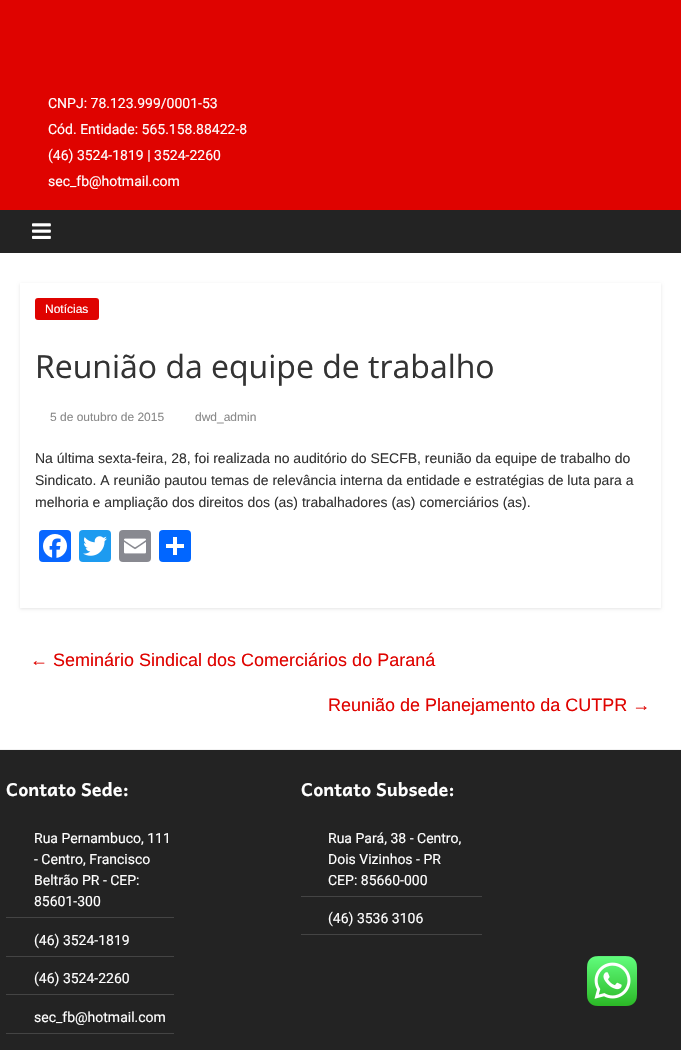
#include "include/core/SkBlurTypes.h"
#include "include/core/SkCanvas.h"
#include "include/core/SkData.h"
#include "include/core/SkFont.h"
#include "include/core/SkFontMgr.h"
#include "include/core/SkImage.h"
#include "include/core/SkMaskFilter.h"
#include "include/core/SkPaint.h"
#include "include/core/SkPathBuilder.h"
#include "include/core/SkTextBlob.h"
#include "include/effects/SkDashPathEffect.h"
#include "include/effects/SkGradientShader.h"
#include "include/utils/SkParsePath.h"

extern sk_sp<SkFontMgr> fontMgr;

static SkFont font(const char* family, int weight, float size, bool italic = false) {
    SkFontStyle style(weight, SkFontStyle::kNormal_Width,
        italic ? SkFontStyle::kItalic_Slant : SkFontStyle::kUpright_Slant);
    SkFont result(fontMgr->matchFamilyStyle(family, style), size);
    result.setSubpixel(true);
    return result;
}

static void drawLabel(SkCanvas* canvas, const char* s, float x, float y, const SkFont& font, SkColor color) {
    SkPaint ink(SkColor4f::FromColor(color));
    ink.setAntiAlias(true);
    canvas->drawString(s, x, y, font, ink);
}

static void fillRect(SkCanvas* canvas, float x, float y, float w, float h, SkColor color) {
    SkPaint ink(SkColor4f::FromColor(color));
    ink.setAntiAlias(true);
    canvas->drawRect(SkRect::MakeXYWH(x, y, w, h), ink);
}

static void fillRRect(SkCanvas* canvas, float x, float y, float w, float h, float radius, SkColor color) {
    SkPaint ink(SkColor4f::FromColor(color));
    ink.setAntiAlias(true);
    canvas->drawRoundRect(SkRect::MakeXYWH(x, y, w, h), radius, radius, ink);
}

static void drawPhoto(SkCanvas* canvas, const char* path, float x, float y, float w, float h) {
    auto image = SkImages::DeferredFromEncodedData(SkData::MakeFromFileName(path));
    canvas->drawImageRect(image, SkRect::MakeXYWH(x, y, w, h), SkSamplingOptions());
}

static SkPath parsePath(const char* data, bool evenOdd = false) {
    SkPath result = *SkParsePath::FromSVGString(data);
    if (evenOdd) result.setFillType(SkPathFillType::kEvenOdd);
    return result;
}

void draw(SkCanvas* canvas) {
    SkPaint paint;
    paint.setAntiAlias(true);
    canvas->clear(0xFFDF0300);
    SkFont font1 = font("Roboto", 400, 14);
    drawLabel(canvas, "CNPJ: 78.123.999/0001-53", 48, 108, font1, 0xFFFFFFFF);
    drawLabel(canvas, "Cód. Entidade: 565.158.88422-8", 48, 134, font1, 0xFFFFFFFF);
    drawLabel(canvas, "(46) 3524-1819 | 3524-2260", 48, 160, font1, 0xFFFFFFFF);
    drawLabel(canvas, "sec_fb@hotmail.com", 48, 186, font1, 0xFFFFFFFF);
    fillRect(canvas, 0, 210, 681, 43, 0xFF232323);
    drawPhoto(canvas, "assets/img1.png", 32, 223, 19, 16);
    fillRect(canvas, 0, 253, 681, 496, 0xFFFFFFFF);
    canvas->save();
    canvas->clipPath(parsePath("M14 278H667V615H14ZM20 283H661V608H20Z", true), true);
    paint.setColor(0x1A000000);
    paint.setMaskFilter(SkMaskFilter::MakeBlur(kNormal_SkBlurStyle, 1.5f));
    canvas->drawRect(SkRect::MakeXYWH(20, 284, 641, 325), paint);
    paint.setMaskFilter(nullptr);
    canvas->restore();
    fillRRect(canvas, 35, 298, 64, 22, 3, 0xFFDF0300);
    SkFont font2 = font("Liberation Sans", 400, 12);
    drawLabel(canvas, "Notícias", 45, 313, font2, 0xFFFFFFFF);
    SkFont font3 = font("Open Sans", 400, 32);
    drawLabel(canvas, "Reunião da equipe de trabalho", 35, 378, font3, 0xFF333333);
    drawLabel(canvas, "5 de outubro de 2015", 50, 421, font2, 0xFF888888);
    drawLabel(canvas, "dwd_admin", 195, 421, font2, 0xFF888888);
    SkFont font4 = font("Liberation Sans", 400, 14);
    drawLabel(canvas, "Na última sexta-feira, 28, foi realizada no auditório do SECFB, reunião da equipe de trabalho do", 35, 463, font4, 0xFF333333);
    drawLabel(canvas, "Sindicato. A reunião pautou temas de relevância interna da entidade e estratégias de luta para a", 35, 485, font4, 0xFF333333);
    drawLabel(canvas, "melhoria e ampliação dos direitos dos (as) trabalhadores (as) comerciários (as).", 35, 507, font4, 0xFF333333);
    fillRRect(canvas, 39, 530, 32, 32, 4, 0xFF0866FF);
    drawPhoto(canvas, "assets/img2.png", 43, 534, 24, 24);
    fillRRect(canvas, 79, 530, 32, 32, 4, 0xFF1D9BF0);
    drawPhoto(canvas, "assets/img3.png", 83, 536, 24, 20);
    fillRRect(canvas, 119, 530, 32, 32, 4, 0xFF888990);
    drawPhoto(canvas, "assets/img4.png", 124, 538, 22, 16);
    fillRRect(canvas, 159, 530, 32, 32, 4, 0xFF0166FF);
    fillRect(canvas, 173, 537, 4, 18, 0xFFFFFFFF);
    fillRect(canvas, 166, 544, 18, 4, 0xFFFFFFFF);
    SkFont font5 = font("Liberation Sans", 400, 18);
    drawLabel(canvas, "← Seminário Sindical dos Comerciários do Paraná", 30, 666, font5, 0xFFDF0300);
    drawLabel(canvas, "Reunião de Planejamento da CUTPR →", 328, 711, font5, 0xFFDF0300);
    fillRect(canvas, 0, 750, 681, 300, 0xFF232323);
    fillRect(canvas, 0, 749, 681, 1, 0xFFF2F2F2);
    SkFont font6 = font("Andika", 700, 18);
    drawLabel(canvas, "Contato Sede:", 6, 796, font6, 0xFFFFFFFF);
    fillRect(canvas, 6, 917, 168, 1, 0xFF444444);
    drawLabel(canvas, "Rua Pernambuco, 111", 34, 843, font1, 0xFFFFFFFF);
    drawLabel(canvas, "- Centro, Francisco", 34, 864, font1, 0xFFFFFFFF);
    drawLabel(canvas, "Beltrão PR - CEP:", 34, 885, font1, 0xFFFFFFFF);
    drawLabel(canvas, "85601-300", 34, 906, font1, 0xFFFFFFFF);
    fillRect(canvas, 6, 956, 168, 1, 0xFF444444);
    drawLabel(canvas, "(46) 3524-1819", 34, 945, font1, 0xFFFFFFFF);
    fillRect(canvas, 6, 994, 168, 1, 0xFF444444);
    drawLabel(canvas, "(46) 3524-2260", 34, 983, font1, 0xFFFFFFFF);
    fillRect(canvas, 6, 1033, 168, 1, 0xFF444444);
    drawLabel(canvas, "sec_fb@hotmail.com", 34, 1022, font1, 0xFFFFFFFF);
    drawLabel(canvas, "Contato Subsede:", 301, 796, font6, 0xFFFFFFFF);
    fillRect(canvas, 301, 896, 181, 1, 0xFF444444);
    drawLabel(canvas, "Rua Pará, 38 - Centro,", 328, 843, font1, 0xFFFFFFFF);
    drawLabel(canvas, "Dois Vizinhos - PR", 328, 864, font1, 0xFFFFFFFF);
    drawLabel(canvas, "CEP: 85660-000", 328, 885, font1, 0xFFFFFFFF);
    fillRect(canvas, 301, 934, 181, 1, 0xFF444444);
    drawLabel(canvas, "(46) 3536 3106", 328, 923, font1, 0xFFFFFFFF);
    drawPhoto(canvas, "assets/img5.png", 587, 956, 50, 50);
}
